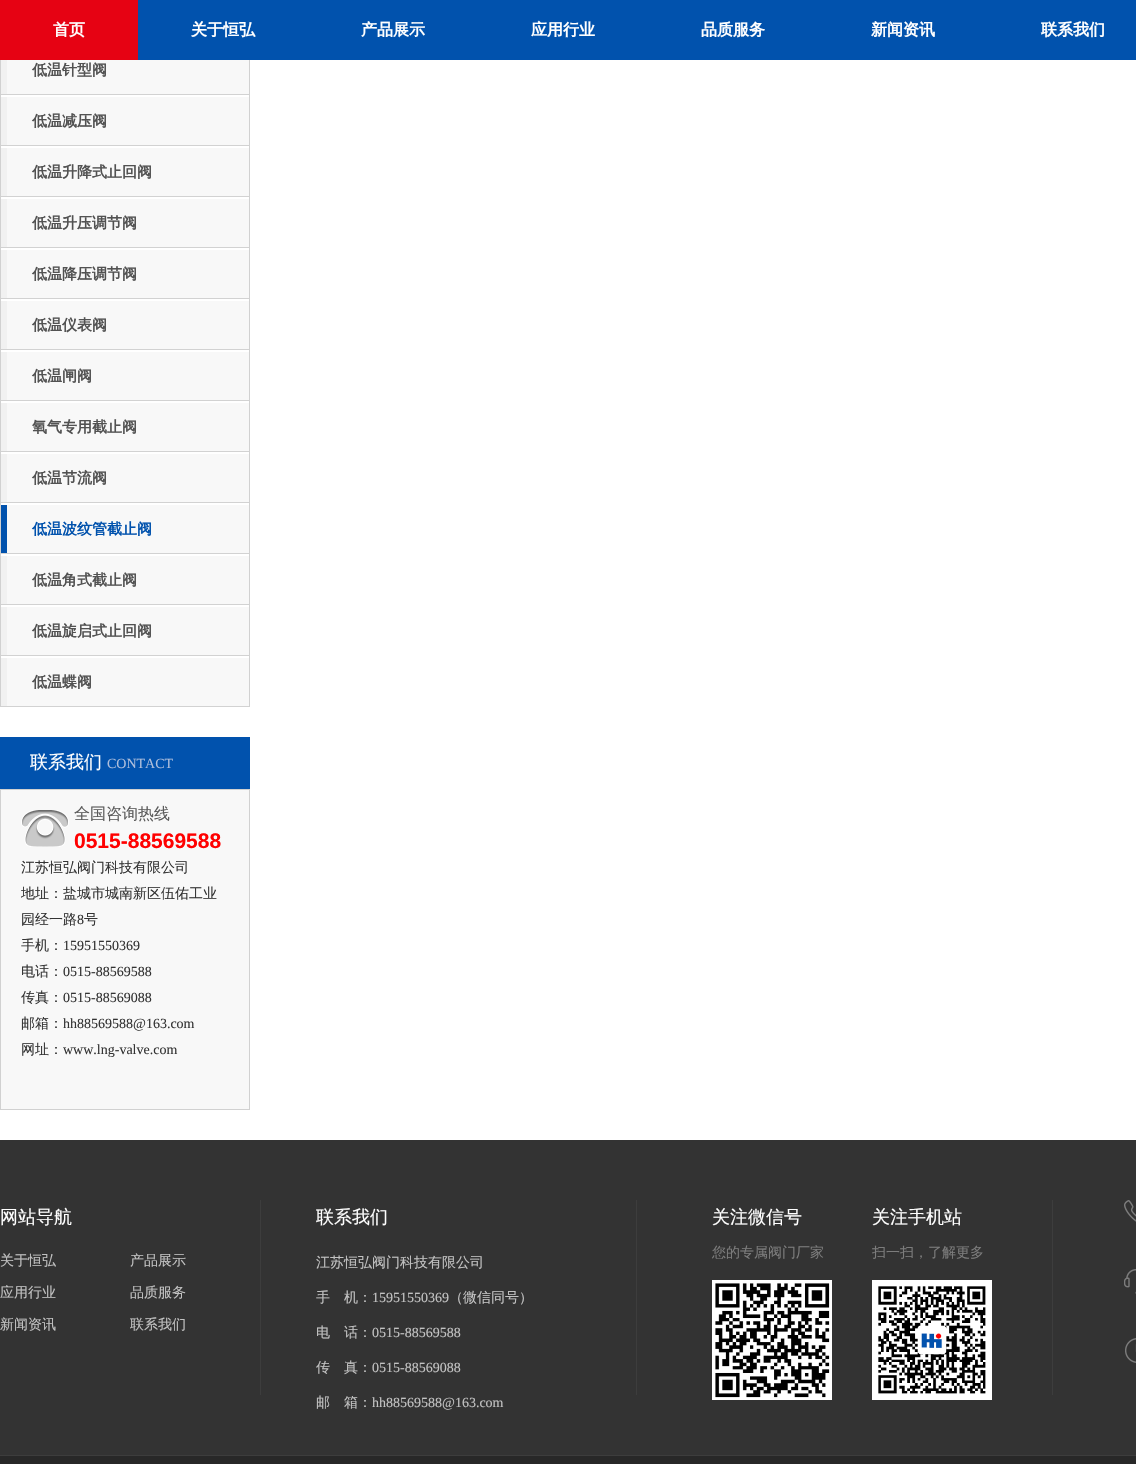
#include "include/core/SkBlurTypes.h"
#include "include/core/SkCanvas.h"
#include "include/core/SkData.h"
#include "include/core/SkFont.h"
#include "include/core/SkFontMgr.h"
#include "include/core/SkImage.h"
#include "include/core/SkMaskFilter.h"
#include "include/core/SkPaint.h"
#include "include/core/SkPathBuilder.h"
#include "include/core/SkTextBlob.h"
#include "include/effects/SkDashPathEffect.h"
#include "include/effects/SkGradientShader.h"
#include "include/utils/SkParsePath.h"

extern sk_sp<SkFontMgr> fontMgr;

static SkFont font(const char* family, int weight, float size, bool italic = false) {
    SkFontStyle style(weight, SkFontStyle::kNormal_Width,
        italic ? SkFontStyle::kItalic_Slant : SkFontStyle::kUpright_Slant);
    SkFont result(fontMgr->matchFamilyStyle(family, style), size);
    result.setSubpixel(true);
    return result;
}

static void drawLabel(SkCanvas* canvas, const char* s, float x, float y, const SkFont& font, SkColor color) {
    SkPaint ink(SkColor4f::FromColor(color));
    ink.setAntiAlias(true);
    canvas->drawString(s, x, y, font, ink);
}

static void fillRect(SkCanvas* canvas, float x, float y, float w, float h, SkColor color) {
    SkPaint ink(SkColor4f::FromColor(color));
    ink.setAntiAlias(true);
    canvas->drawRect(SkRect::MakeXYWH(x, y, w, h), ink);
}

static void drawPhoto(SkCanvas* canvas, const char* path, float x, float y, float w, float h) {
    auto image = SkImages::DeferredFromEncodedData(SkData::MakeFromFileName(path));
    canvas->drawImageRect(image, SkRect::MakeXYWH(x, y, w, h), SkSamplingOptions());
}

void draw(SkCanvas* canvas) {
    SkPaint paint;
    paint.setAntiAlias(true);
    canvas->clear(0xFFFFFFFF);
    fillRect(canvas, 138, 0, 998, 60, 0xFF0152AD);
    fillRect(canvas, 0, 0, 138, 60, 0xFFE60213);
    SkFont font1 = font("WenQuanYi Zen Hei", 700, 16);
    drawLabel(canvas, "首页", 53, 35, font1, 0xFFFFFFFF);
    drawLabel(canvas, "关于恒弘", 191, 35, font1, 0xFFFFFFFF);
    drawLabel(canvas, "产品展示", 361, 35, font1, 0xFFFFFFFF);
    drawLabel(canvas, "应用行业", 531, 35, font1, 0xFFFFFFFF);
    drawLabel(canvas, "品质服务", 701, 35, font1, 0xFFFFFFFF);
    drawLabel(canvas, "新闻资讯", 871, 35, font1, 0xFFFFFFFF);
    drawLabel(canvas, "联系我们", 1041, 35, font1, 0xFFFFFFFF);
    fillRect(canvas, 249, 60, 1, 647, 0xFFD1D1D1);
    fillRect(canvas, 0, 60, 1, 647, 0xFFD1D1D1);
    fillRect(canvas, 7, 60, 242, 34, 0xFFF8F8F8);
    fillRect(canvas, 1, 94, 248, 1, 0xFFD2D2D2);
    fillRect(canvas, 1, 60, 6, 34, 0xFFF1F1F1);
    SkFont font2 = font("WenQuanYi Zen Hei", 700, 15);
    drawLabel(canvas, "低温针型阀", 32, 75, font2, 0xFF525252);
    fillRect(canvas, 7, 97, 242, 48, 0xFFF8F8F8);
    fillRect(canvas, 1, 145, 248, 1, 0xFFD2D2D2);
    fillRect(canvas, 1, 97, 6, 48, 0xFFF1F1F1);
    drawLabel(canvas, "低温减压阀", 32, 126, font2, 0xFF525252);
    fillRect(canvas, 7, 148, 242, 48, 0xFFF8F8F8);
    fillRect(canvas, 1, 196, 248, 1, 0xFFD2D2D2);
    fillRect(canvas, 1, 148, 6, 48, 0xFFF1F1F1);
    drawLabel(canvas, "低温升降式止回阀", 32, 177, font2, 0xFF525252);
    fillRect(canvas, 7, 199, 242, 48, 0xFFF8F8F8);
    fillRect(canvas, 1, 247, 248, 1, 0xFFD2D2D2);
    fillRect(canvas, 1, 199, 6, 48, 0xFFF1F1F1);
    drawLabel(canvas, "低温升压调节阀", 32, 228, font2, 0xFF525252);
    fillRect(canvas, 7, 250, 242, 48, 0xFFF8F8F8);
    fillRect(canvas, 1, 298, 248, 1, 0xFFD2D2D2);
    fillRect(canvas, 1, 250, 6, 48, 0xFFF1F1F1);
    drawLabel(canvas, "低温降压调节阀", 32, 279, font2, 0xFF525252);
    fillRect(canvas, 7, 301, 242, 48, 0xFFF8F8F8);
    fillRect(canvas, 1, 349, 248, 1, 0xFFD2D2D2);
    fillRect(canvas, 1, 301, 6, 48, 0xFFF1F1F1);
    drawLabel(canvas, "低温仪表阀", 32, 330, font2, 0xFF525252);
    fillRect(canvas, 7, 352, 242, 48, 0xFFF8F8F8);
    fillRect(canvas, 1, 400, 248, 1, 0xFFD2D2D2);
    fillRect(canvas, 1, 352, 6, 48, 0xFFF1F1F1);
    drawLabel(canvas, "低温闸阀", 32, 381, font2, 0xFF525252);
    fillRect(canvas, 7, 403, 242, 48, 0xFFF8F8F8);
    fillRect(canvas, 1, 451, 248, 1, 0xFFD2D2D2);
    fillRect(canvas, 1, 403, 6, 48, 0xFFF1F1F1);
    drawLabel(canvas, "氧气专用截止阀", 32, 432, font2, 0xFF525252);
    fillRect(canvas, 7, 454, 242, 48, 0xFFF8F8F8);
    fillRect(canvas, 1, 502, 248, 1, 0xFFD2D2D2);
    fillRect(canvas, 1, 454, 6, 48, 0xFFF1F1F1);
    drawLabel(canvas, "低温节流阀", 32, 483, font2, 0xFF525252);
    fillRect(canvas, 7, 505, 242, 48, 0xFFF8F8F8);
    fillRect(canvas, 1, 553, 248, 1, 0xFFD2D2D2);
    fillRect(canvas, 1, 505, 6, 48, 0xFF0152AD);
    drawLabel(canvas, "低温波纹管截止阀", 32, 534, font2, 0xFF0152AD);
    fillRect(canvas, 7, 556, 242, 48, 0xFFF8F8F8);
    fillRect(canvas, 1, 604, 248, 1, 0xFFD2D2D2);
    fillRect(canvas, 1, 556, 6, 48, 0xFFF1F1F1);
    drawLabel(canvas, "低温角式截止阀", 32, 585, font2, 0xFF525252);
    fillRect(canvas, 7, 607, 242, 48, 0xFFF8F8F8);
    fillRect(canvas, 1, 655, 248, 1, 0xFFD2D2D2);
    fillRect(canvas, 1, 607, 6, 48, 0xFFF1F1F1);
    drawLabel(canvas, "低温旋启式止回阀", 32, 636, font2, 0xFF525252);
    fillRect(canvas, 7, 658, 242, 48, 0xFFF8F8F8);
    fillRect(canvas, 1, 706, 248, 1, 0xFFD2D2D2);
    fillRect(canvas, 1, 658, 6, 48, 0xFFF1F1F1);
    drawLabel(canvas, "低温蝶阀", 32, 687, font2, 0xFF525252);
    fillRect(canvas, 0, 737, 250, 52, 0xFF0152AD);
    SkFont font3 = font("WenQuanYi Zen Hei", 500, 18);
    drawLabel(canvas, "联系我们", 30, 768, font3, 0xFFFFFFFF);
    SkFont font4 = font("Liberation Serif", 400, 14);
    drawLabel(canvas, "CONTACT", 107, 768, font4, 0xFFADBEDC);
    fillRect(canvas, 1, 790, 248, 319, 0xFFF8F8F8);
    drawPhoto(canvas, "assets/img1.png", 21, 810, 48, 37);
    paint.setStroke(true);
    paint.setStrokeWidth(1);
    paint.setColor(0xFFD1D1D1);
    canvas->drawRect(SkRect::MakeXYWH(0.5f, 789.5f, 249, 320), paint);
    SkFont font5 = font("WenQuanYi Zen Hei", 500, 16);
    drawLabel(canvas, "全国咨询热线", 74, 819, font5, 0xFF5B5B5B);
    SkFont font6 = font("Liberation Sans", 700, 21);
    drawLabel(canvas, "0515-88569588", 74, 848, font6, 0xFFFF0000);
    SkFont font7 = font("WenQuanYi Zen Hei", 500, 14);
    drawLabel(canvas, "江苏恒弘阀门科技有限公司", 21, 872, font7, 0xFF333333);
    drawLabel(canvas, "地址：盐城市城南新区伍佑工业", 21, 898, font7, 0xFF333333);
    drawLabel(canvas, "园经一路", 21, 924, font7, 0xFF333333);
    drawLabel(canvas, "8", 77, 924, font4, 0xFF333333);
    drawLabel(canvas, "号", 84, 924, font7, 0xFF333333);
    drawLabel(canvas, "手机：", 21, 950, font7, 0xFF333333);
    drawLabel(canvas, "15951550369", 63, 950, font4, 0xFF333333);
    drawLabel(canvas, "电话：", 21, 976, font7, 0xFF333333);
    drawLabel(canvas, "0515-88569588", 63, 976, font4, 0xFF333333);
    drawLabel(canvas, "传真：", 21, 1002, font7, 0xFF333333);
    drawLabel(canvas, "0515-88569088", 63, 1002, font4, 0xFF333333);
    drawLabel(canvas, "邮箱：", 21, 1028, font7, 0xFF333333);
    drawLabel(canvas, "hh88569588@163.com", 63, 1028, font4, 0xFF333333);
    drawLabel(canvas, "网址：", 21, 1054, font7, 0xFF333333);
    drawLabel(canvas, "www.lng-valve.com", 63, 1054, font4, 0xFF333333);
    fillRect(canvas, 0, 1140, 1136, 315, 0xFF333333);
    fillRect(canvas, 260, 1200, 1, 195, 0xFF3D3D3D);
    drawLabel(canvas, "网站导航", 0, 1223, font3, 0xFFFFFFFF);
    drawLabel(canvas, "关于恒弘", 0, 1265, font7, 0xFFC2C2C2);
    drawLabel(canvas, "产品展示", 130, 1265, font7, 0xFFC2C2C2);
    drawLabel(canvas, "应用行业", 0, 1297, font7, 0xFFC2C2C2);
    drawLabel(canvas, "品质服务", 130, 1297, font7, 0xFFC2C2C2);
    drawLabel(canvas, "新闻资讯", 0, 1329, font7, 0xFFC2C2C2);
    drawLabel(canvas, "联系我们", 130, 1329, font7, 0xFFC2C2C2);
    fillRect(canvas, 636, 1200, 1, 195, 0xFF3D3D3D);
    drawLabel(canvas, "联系我们", 316, 1223, font3, 0xFFFFFFFF);
    drawLabel(canvas, "江苏恒弘阀门科技有限公司", 316, 1267, font7, 0xFFC2C2C2);
    drawLabel(canvas, "手　机：", 316, 1302, font7, 0xFFC2C2C2);
    drawLabel(canvas, "15951550369", 372, 1302, font4, 0xFFC2C2C2);
    drawLabel(canvas, "（微信同号）", 449, 1302, font7, 0xFFC2C2C2);
    drawLabel(canvas, "电　话：", 316, 1337, font7, 0xFFC2C2C2);
    drawLabel(canvas, "0515-88569588", 372, 1337, font4, 0xFFC2C2C2);
    drawLabel(canvas, "传　真：", 316, 1372, font7, 0xFFC2C2C2);
    drawLabel(canvas, "0515-88569088", 372, 1372, font4, 0xFFC2C2C2);
    drawLabel(canvas, "邮　箱：", 316, 1407, font7, 0xFFC2C2C2);
    drawLabel(canvas, "hh88569588@163.com", 372, 1407, font4, 0xFFC2C2C2);
    fillRect(canvas, 1052, 1200, 1, 195, 0xFF3D3D3D);
    drawLabel(canvas, "关注微信号", 712, 1223, font3, 0xFFFFFFFF);
    drawLabel(canvas, "您的专属阀门厂家", 712, 1257, font7, 0xFF7C7C7C);
    drawPhoto(canvas, "assets/img2.png", 712, 1280, 120, 120);
    drawLabel(canvas, "关注手机站", 872, 1223, font3, 0xFFFFFFFF);
    drawLabel(canvas, "扫一扫，了解更多", 872, 1257, font7, 0xFF7C7C7C);
    drawPhoto(canvas, "assets/img3.png", 872, 1280, 120, 120);
    drawPhoto(canvas, "assets/img4.png", 1124, 1200, 12, 163);
    fillRect(canvas, 0, 1456, 1136, 8, 0xFF282828);
    fillRect(canvas, 0, 1455, 1136, 1, 0xFF3D3D3D);
}
